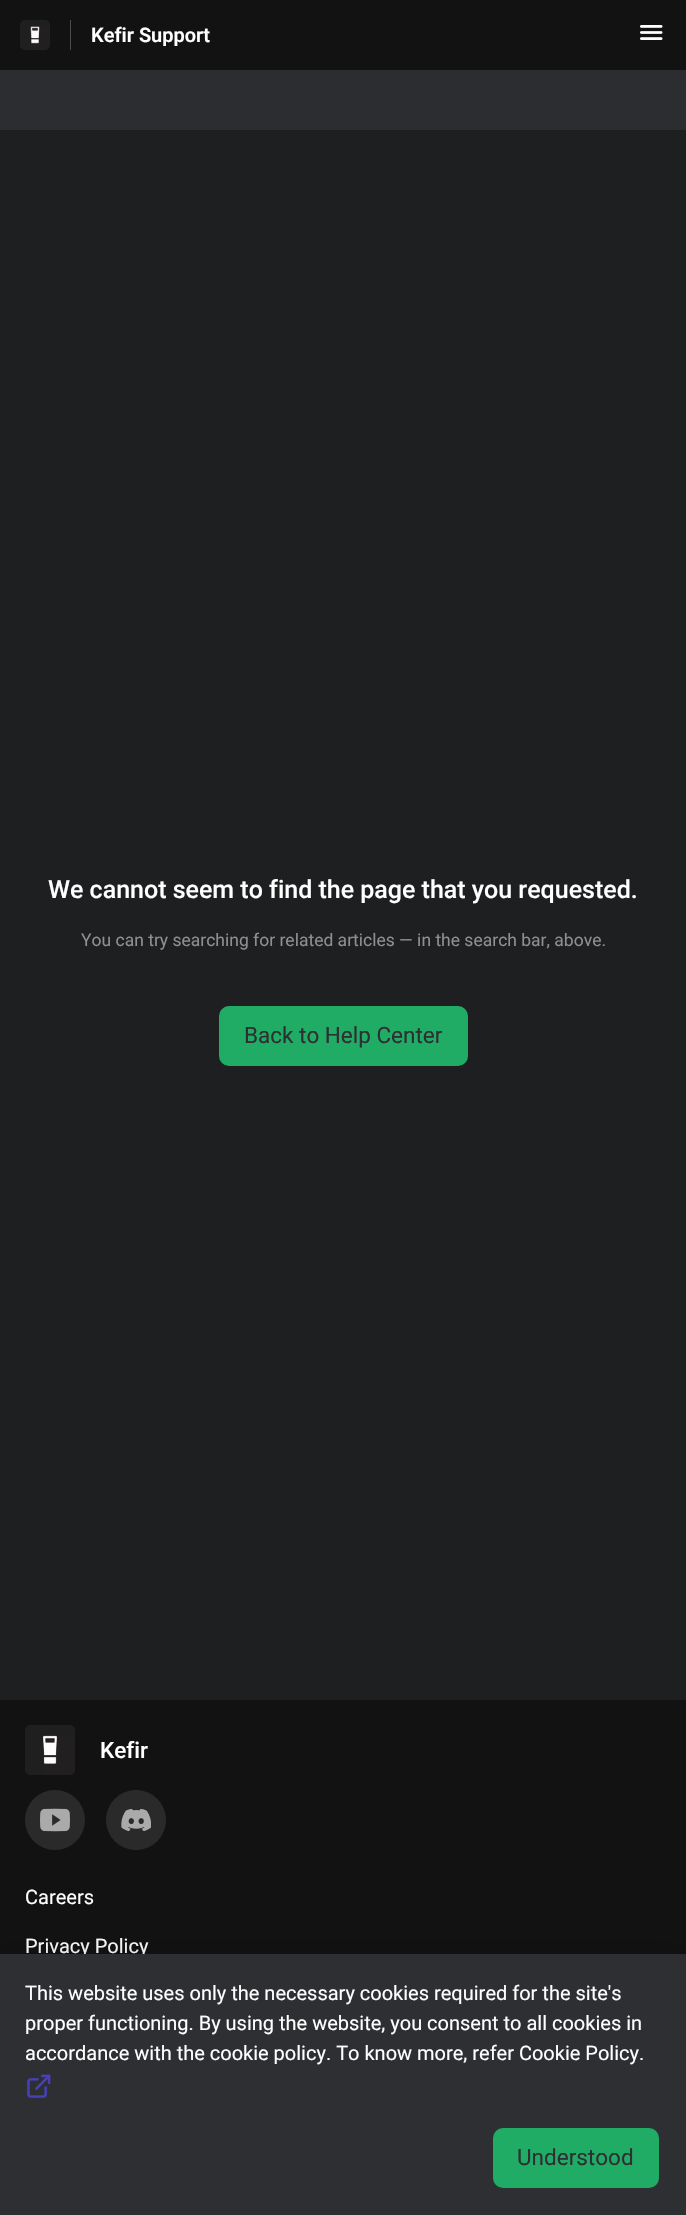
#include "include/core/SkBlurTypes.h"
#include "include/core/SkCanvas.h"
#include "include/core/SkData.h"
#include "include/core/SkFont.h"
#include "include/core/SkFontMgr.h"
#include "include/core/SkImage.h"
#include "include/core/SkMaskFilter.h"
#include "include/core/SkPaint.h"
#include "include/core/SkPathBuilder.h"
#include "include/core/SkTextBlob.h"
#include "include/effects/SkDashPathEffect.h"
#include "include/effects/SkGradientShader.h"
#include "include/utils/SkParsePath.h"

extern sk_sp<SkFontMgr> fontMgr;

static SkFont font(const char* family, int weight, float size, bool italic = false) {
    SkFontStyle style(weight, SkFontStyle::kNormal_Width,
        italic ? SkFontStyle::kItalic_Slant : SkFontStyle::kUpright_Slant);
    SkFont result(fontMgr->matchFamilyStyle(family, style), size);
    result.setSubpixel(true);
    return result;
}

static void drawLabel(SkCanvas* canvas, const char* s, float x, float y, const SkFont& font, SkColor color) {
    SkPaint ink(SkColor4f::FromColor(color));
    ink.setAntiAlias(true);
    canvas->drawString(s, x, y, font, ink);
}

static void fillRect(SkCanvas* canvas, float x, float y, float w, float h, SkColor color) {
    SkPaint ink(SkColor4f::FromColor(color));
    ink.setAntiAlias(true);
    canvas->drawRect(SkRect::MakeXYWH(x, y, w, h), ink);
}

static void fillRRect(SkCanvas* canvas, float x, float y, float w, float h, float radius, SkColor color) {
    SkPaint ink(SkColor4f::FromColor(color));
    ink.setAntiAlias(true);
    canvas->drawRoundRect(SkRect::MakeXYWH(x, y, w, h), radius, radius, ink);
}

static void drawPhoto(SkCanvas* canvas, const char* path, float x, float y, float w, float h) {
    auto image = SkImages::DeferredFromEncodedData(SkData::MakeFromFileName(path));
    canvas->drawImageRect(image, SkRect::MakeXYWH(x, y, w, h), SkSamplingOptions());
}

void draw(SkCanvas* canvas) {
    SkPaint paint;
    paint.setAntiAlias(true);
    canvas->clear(0xFF1E1F20);
    fillRect(canvas, 0, 0, 686, 70, 0xFF121212);
    fillRect(canvas, 70, 20, 1, 30, 0xFF4D4D4D);
    drawPhoto(canvas, "assets/img1.png", 20, 20, 30, 30);
    SkFont font1 = font("Roboto", 600, 20);
    drawLabel(canvas, "Kefir Support", 91, 42, font1, 0xFFFFFFFF);
    drawPhoto(canvas, "assets/img2.png", 640, 25, 23, 15);
    fillRect(canvas, 0, 70, 686, 60, 0xFF2B2D30);
    SkFont font2 = font("Roboto", 500, 25);
    drawLabel(canvas, "We cannot seem to find the page that you requested.", 48, 898, font2, 0xFFFFFFFF);
    SkFont font3 = font("Roboto", 400, 17.5f);
    drawLabel(canvas, "You can try searching for related articles — in the search bar, above.", 81, 946, font3, 0xFF8F8F90);
    fillRRect(canvas, 219, 1006, 249, 60, 10, 0xFF20AC64);
    SkFont font4 = font("Roboto", 400, 22.5f);
    drawLabel(canvas, "Back to Help Center", 244, 1043, font4, 0xFF2D2F33);
    fillRect(canvas, 0, 1700, 686, 254, 0xFF121212);
    drawPhoto(canvas, "assets/img3.png", 25, 1725, 50, 50);
    SkFont font5 = font("Roboto", 500, 22.5f);
    drawLabel(canvas, "Kefir", 100, 1758, font5, 0xFFFFFFFF);
    paint.setColor(0xFF2A2A2A);
    canvas->drawCircle(55, 1820, 30, paint);
    drawPhoto(canvas, "assets/img4.png", 40, 1808, 30, 24);
    canvas->drawCircle(136, 1820, 30, paint);
    drawPhoto(canvas, "assets/img5.png", 121, 1809, 30, 22);
    SkFont font6 = font("Roboto", 400, 20);
    drawLabel(canvas, "Careers", 25, 1904, font6, 0xFFFFFFFF);
    drawLabel(canvas, "Privacy Policy", 25, 1953, font6, 0xFFFFFFFF);
    paint.setColor(0x29000000);
    paint.setMaskFilter(SkMaskFilter::MakeBlur(kNormal_SkBlurStyle, 15));
    canvas->drawRect(SkRect::MakeXYWH(0, 1954, 686, 261), paint);
    paint.setMaskFilter(nullptr);
    fillRect(canvas, 0, 1954, 686, 261, 0xFF2D2F33);
    drawLabel(canvas, "This website uses only the necessary cookies required for the site's", 25, 2000, font6, 0xFFFFFFFF);
    drawLabel(canvas, "proper functioning. By using the website, you consent to all cookies in", 25, 2030, font6, 0xFFFFFFFF);
    drawLabel(canvas, "accordance with the cookie policy. To know more, refer Cookie Policy.", 25, 2060, font6, 0xFFFFFFFF);
    drawPhoto(canvas, "assets/img6.png", 27, 2074, 24, 24);
    fillRRect(canvas, 493, 2128, 166, 60, 10, 0xFF20AC64);
    drawLabel(canvas, "Understood", 517, 2165, font4, 0xFF2D2F33);
}
